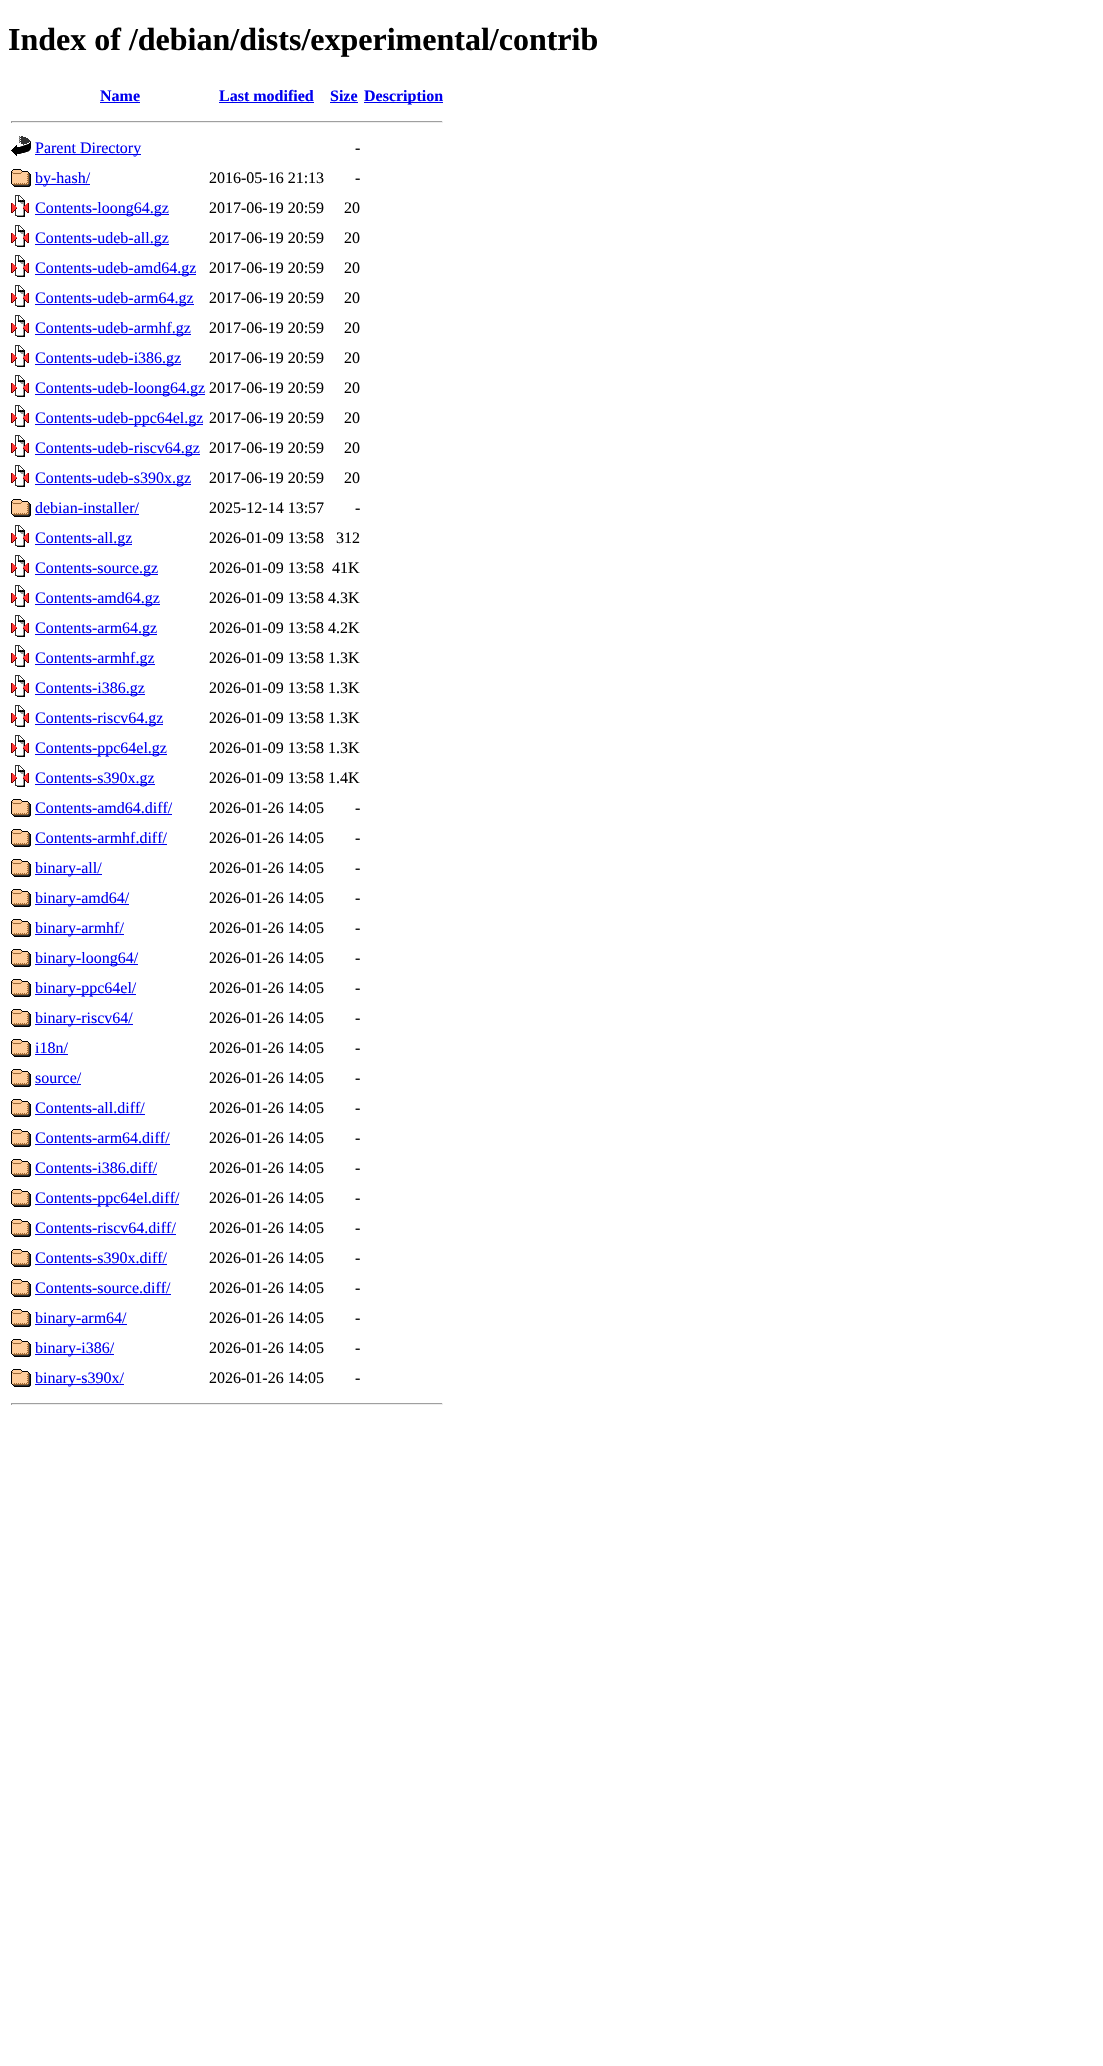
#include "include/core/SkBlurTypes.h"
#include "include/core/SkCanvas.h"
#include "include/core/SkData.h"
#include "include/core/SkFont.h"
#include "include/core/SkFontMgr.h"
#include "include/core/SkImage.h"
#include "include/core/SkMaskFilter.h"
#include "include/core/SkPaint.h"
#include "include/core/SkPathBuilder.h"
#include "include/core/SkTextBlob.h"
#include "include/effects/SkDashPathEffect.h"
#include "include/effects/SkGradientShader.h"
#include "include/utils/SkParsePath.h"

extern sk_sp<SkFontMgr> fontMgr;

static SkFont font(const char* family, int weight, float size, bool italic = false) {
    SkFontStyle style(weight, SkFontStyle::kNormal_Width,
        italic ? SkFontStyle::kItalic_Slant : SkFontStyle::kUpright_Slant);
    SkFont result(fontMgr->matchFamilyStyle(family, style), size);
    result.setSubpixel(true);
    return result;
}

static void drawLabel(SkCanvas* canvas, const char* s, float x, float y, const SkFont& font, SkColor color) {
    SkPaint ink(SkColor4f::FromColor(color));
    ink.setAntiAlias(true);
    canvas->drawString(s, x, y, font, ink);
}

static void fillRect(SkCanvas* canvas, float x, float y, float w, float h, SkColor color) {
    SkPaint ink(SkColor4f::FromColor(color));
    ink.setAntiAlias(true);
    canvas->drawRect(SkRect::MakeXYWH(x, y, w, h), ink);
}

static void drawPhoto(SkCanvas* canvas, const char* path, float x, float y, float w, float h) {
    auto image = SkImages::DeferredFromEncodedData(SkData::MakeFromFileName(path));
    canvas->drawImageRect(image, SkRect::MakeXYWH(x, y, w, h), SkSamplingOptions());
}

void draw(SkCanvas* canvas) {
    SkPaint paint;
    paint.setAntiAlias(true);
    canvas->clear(0xFFFFFFFF);
    SkFont font1 = font("Liberation Serif", 700, 32);
    drawLabel(canvas, "Index of /debian/dists/experimental/contrib", 8, 50, font1, 0xFF000000);
    SkFont font2 = font("Liberation Serif", 700, 16);
    drawLabel(canvas, "Name", 100, 101, font2, 0xFF0000EE);
    fillRect(canvas, 100, 102, 40, 1, 0xFF0000EE);
    drawLabel(canvas, "Last modified", 219, 101, font2, 0xFF0000EE);
    fillRect(canvas, 219, 102, 95, 1, 0xFF0000EE);
    drawLabel(canvas, "Size", 330, 101, font2, 0xFF0000EE);
    fillRect(canvas, 330, 102, 28, 1, 0xFF0000EE);
    fillRect(canvas, 364, 102, 79, 1, 0xFF0000EE);
    drawLabel(canvas, "Description", 364, 101, font2, 0xFF0000EE);
    fillRect(canvas, 11, 121, 432, 1, 0xFF9F9F9F);
    fillRect(canvas, 442, 121, 1, 2, 0xFFEEEEEE);
    fillRect(canvas, 11, 122, 432, 1, 0xFFEEEEEE);
    fillRect(canvas, 11, 121, 1, 2, 0xFF9F9F9F);
    drawPhoto(canvas, "assets/img1.png", 11, 136, 20, 20);
    fillRect(canvas, 35, 154, 106, 1, 0xFF0000EE);
    SkFont font3 = font("Liberation Serif", 400, 16);
    drawLabel(canvas, "Parent Directory", 35, 153, font3, 0xFF0000EE);
    drawLabel(canvas, "-", 355, 153, font3, 0xFF000000);
    drawPhoto(canvas, "assets/img2.png", 11, 169, 20, 18);
    fillRect(canvas, 35, 184, 55, 1, 0xFF0000EE);
    drawLabel(canvas, "by-hash/", 35, 183, font3, 0xFF0000EE);
    drawLabel(canvas, "2016-05-16 21:13", 209, 183, font3, 0xFF000000);
    drawLabel(canvas, "-", 355, 183, font3, 0xFF000000);
    drawPhoto(canvas, "assets/img3.png", 11, 195, 18, 22);
    fillRect(canvas, 35, 214, 134, 1, 0xFF0000EE);
    drawLabel(canvas, "Contents-loong64.gz", 35, 213, font3, 0xFF0000EE);
    drawLabel(canvas, "2017-06-19 20:59", 209, 213, font3, 0xFF000000);
    drawLabel(canvas, "20", 344, 213, font3, 0xFF000000);
    drawPhoto(canvas, "assets/img3.png", 11, 225, 18, 22);
    fillRect(canvas, 35, 244, 134, 1, 0xFF0000EE);
    drawLabel(canvas, "Contents-udeb-all.gz", 35, 243, font3, 0xFF0000EE);
    drawLabel(canvas, "2017-06-19 20:59", 209, 243, font3, 0xFF000000);
    drawLabel(canvas, "20", 344, 243, font3, 0xFF000000);
    drawPhoto(canvas, "assets/img3.png", 11, 255, 18, 22);
    fillRect(canvas, 35, 274, 161, 1, 0xFF0000EE);
    drawLabel(canvas, "Contents-udeb-amd64.gz", 35, 273, font3, 0xFF0000EE);
    drawLabel(canvas, "2017-06-19 20:59", 209, 273, font3, 0xFF000000);
    drawLabel(canvas, "20", 344, 273, font3, 0xFF000000);
    drawPhoto(canvas, "assets/img3.png", 11, 285, 18, 22);
    fillRect(canvas, 35, 304, 159, 1, 0xFF0000EE);
    drawLabel(canvas, "Contents-udeb-arm64.gz", 35, 303, font3, 0xFF0000EE);
    drawLabel(canvas, "2017-06-19 20:59", 209, 303, font3, 0xFF000000);
    drawLabel(canvas, "20", 344, 303, font3, 0xFF000000);
    drawPhoto(canvas, "assets/img3.png", 11, 315, 18, 22);
    fillRect(canvas, 35, 334, 156, 1, 0xFF0000EE);
    drawLabel(canvas, "Contents-udeb-armhf.gz", 35, 333, font3, 0xFF0000EE);
    drawLabel(canvas, "2017-06-19 20:59", 209, 333, font3, 0xFF000000);
    drawLabel(canvas, "20", 344, 333, font3, 0xFF000000);
    drawPhoto(canvas, "assets/img3.png", 11, 345, 18, 22);
    fillRect(canvas, 35, 364, 146, 1, 0xFF0000EE);
    drawLabel(canvas, "Contents-udeb-i386.gz", 35, 363, font3, 0xFF0000EE);
    drawLabel(canvas, "2017-06-19 20:59", 209, 363, font3, 0xFF000000);
    drawLabel(canvas, "20", 344, 363, font3, 0xFF000000);
    drawPhoto(canvas, "assets/img3.png", 11, 375, 18, 22);
    fillRect(canvas, 35, 394, 170, 1, 0xFF0000EE);
    drawLabel(canvas, "Contents-udeb-loong64.gz", 35, 393, font3, 0xFF0000EE);
    drawLabel(canvas, "2017-06-19 20:59", 209, 393, font3, 0xFF000000);
    drawLabel(canvas, "20", 344, 393, font3, 0xFF000000);
    drawPhoto(canvas, "assets/img3.png", 11, 405, 18, 22);
    fillRect(canvas, 35, 424, 168, 1, 0xFF0000EE);
    drawLabel(canvas, "Contents-udeb-ppc64el.gz", 35, 423, font3, 0xFF0000EE);
    drawLabel(canvas, "2017-06-19 20:59", 209, 423, font3, 0xFF000000);
    drawLabel(canvas, "20", 344, 423, font3, 0xFF000000);
    drawPhoto(canvas, "assets/img3.png", 11, 435, 18, 22);
    fillRect(canvas, 35, 454, 165, 1, 0xFF0000EE);
    drawLabel(canvas, "Contents-udeb-riscv64.gz", 35, 453, font3, 0xFF0000EE);
    drawLabel(canvas, "2017-06-19 20:59", 209, 453, font3, 0xFF000000);
    drawLabel(canvas, "20", 344, 453, font3, 0xFF000000);
    drawPhoto(canvas, "assets/img3.png", 11, 465, 18, 22);
    fillRect(canvas, 35, 484, 156, 1, 0xFF0000EE);
    drawLabel(canvas, "Contents-udeb-s390x.gz", 35, 483, font3, 0xFF0000EE);
    drawLabel(canvas, "2017-06-19 20:59", 209, 483, font3, 0xFF000000);
    drawLabel(canvas, "20", 344, 483, font3, 0xFF000000);
    drawPhoto(canvas, "assets/img2.png", 11, 499, 20, 18);
    drawLabel(canvas, "debian-installer/", 35, 513, font3, 0xFF0000EE);
    fillRect(canvas, 35, 514, 104, 1, 0xFF0000EE);
    drawLabel(canvas, "2025-12-14 13:57", 209, 513, font3, 0xFF000000);
    drawLabel(canvas, "-", 355, 513, font3, 0xFF000000);
    drawPhoto(canvas, "assets/img3.png", 11, 525, 18, 22);
    fillRect(canvas, 35, 544, 97, 1, 0xFF0000EE);
    drawLabel(canvas, "Contents-all.gz", 35, 543, font3, 0xFF0000EE);
    drawLabel(canvas, "2026-01-09 13:58", 209, 543, font3, 0xFF000000);
    drawLabel(canvas, "312", 336, 543, font3, 0xFF000000);
    drawPhoto(canvas, "assets/img3.png", 11, 555, 18, 22);
    fillRect(canvas, 35, 574, 123, 1, 0xFF0000EE);
    drawLabel(canvas, "Contents-source.gz", 35, 573, font3, 0xFF0000EE);
    drawLabel(canvas, "2026-01-09 13:58", 209, 573, font3, 0xFF000000);
    drawLabel(canvas, "41K", 332, 573, font3, 0xFF000000);
    drawPhoto(canvas, "assets/img3.png", 11, 585, 18, 22);
    fillRect(canvas, 35, 604, 125, 1, 0xFF0000EE);
    drawLabel(canvas, "Contents-amd64.gz", 35, 603, font3, 0xFF0000EE);
    drawLabel(canvas, "2026-01-09 13:58 4.3K", 209, 603, font3, 0xFF000000);
    drawPhoto(canvas, "assets/img3.png", 11, 615, 18, 22);
    fillRect(canvas, 35, 634, 122, 1, 0xFF0000EE);
    drawLabel(canvas, "Contents-arm64.gz", 35, 633, font3, 0xFF0000EE);
    drawLabel(canvas, "2026-01-09 13:58 4.2K", 209, 633, font3, 0xFF000000);
    drawPhoto(canvas, "assets/img3.png", 11, 645, 18, 22);
    fillRect(canvas, 35, 664, 120, 1, 0xFF0000EE);
    drawLabel(canvas, "Contents-armhf.gz", 35, 663, font3, 0xFF0000EE);
    drawLabel(canvas, "2026-01-09 13:58 1.3K", 209, 663, font3, 0xFF000000);
    drawPhoto(canvas, "assets/img3.png", 11, 675, 18, 22);
    fillRect(canvas, 35, 694, 110, 1, 0xFF0000EE);
    drawLabel(canvas, "Contents-i386.gz", 35, 693, font3, 0xFF0000EE);
    drawLabel(canvas, "2026-01-09 13:58 1.3K", 209, 693, font3, 0xFF000000);
    drawPhoto(canvas, "assets/img3.png", 11, 705, 18, 22);
    fillRect(canvas, 35, 724, 128, 1, 0xFF0000EE);
    drawLabel(canvas, "Contents-riscv64.gz", 35, 723, font3, 0xFF0000EE);
    drawLabel(canvas, "2026-01-09 13:58 1.3K", 209, 723, font3, 0xFF000000);
    drawPhoto(canvas, "assets/img3.png", 11, 735, 18, 22);
    fillRect(canvas, 35, 754, 132, 1, 0xFF0000EE);
    drawLabel(canvas, "Contents-ppc64el.gz", 35, 753, font3, 0xFF0000EE);
    drawLabel(canvas, "2026-01-09 13:58 1.3K", 209, 753, font3, 0xFF000000);
    drawPhoto(canvas, "assets/img3.png", 11, 765, 18, 22);
    fillRect(canvas, 35, 784, 120, 1, 0xFF0000EE);
    drawLabel(canvas, "Contents-s390x.gz", 35, 783, font3, 0xFF0000EE);
    drawLabel(canvas, "2026-01-09 13:58 1.4K", 209, 783, font3, 0xFF000000);
    drawPhoto(canvas, "assets/img2.png", 11, 799, 20, 18);
    drawLabel(canvas, "Contents-amd64.diff/", 35, 813, font3, 0xFF0000EE);
    fillRect(canvas, 35, 814, 137, 1, 0xFF0000EE);
    drawLabel(canvas, "2026-01-26 14:05", 209, 813, font3, 0xFF000000);
    drawLabel(canvas, "-", 355, 813, font3, 0xFF000000);
    drawPhoto(canvas, "assets/img2.png", 11, 829, 20, 18);
    drawLabel(canvas, "Contents-armhf.diff/", 35, 843, font3, 0xFF0000EE);
    fillRect(canvas, 35, 844, 132, 1, 0xFF0000EE);
    drawLabel(canvas, "2026-01-26 14:05", 209, 843, font3, 0xFF000000);
    drawLabel(canvas, "-", 355, 843, font3, 0xFF000000);
    drawPhoto(canvas, "assets/img2.png", 11, 859, 20, 18);
    fillRect(canvas, 35, 874, 67, 1, 0xFF0000EE);
    drawLabel(canvas, "binary-all/", 35, 873, font3, 0xFF0000EE);
    drawLabel(canvas, "2026-01-26 14:05", 209, 873, font3, 0xFF000000);
    drawLabel(canvas, "-", 355, 873, font3, 0xFF000000);
    drawPhoto(canvas, "assets/img2.png", 11, 889, 20, 18);
    fillRect(canvas, 35, 904, 94, 1, 0xFF0000EE);
    drawLabel(canvas, "binary-amd64/", 35, 903, font3, 0xFF0000EE);
    drawLabel(canvas, "2026-01-26 14:05", 209, 903, font3, 0xFF000000);
    drawLabel(canvas, "-", 355, 903, font3, 0xFF000000);
    drawPhoto(canvas, "assets/img2.png", 11, 919, 20, 18);
    fillRect(canvas, 35, 934, 89, 1, 0xFF0000EE);
    drawLabel(canvas, "binary-armhf/", 35, 933, font3, 0xFF0000EE);
    drawLabel(canvas, "2026-01-26 14:05", 209, 933, font3, 0xFF000000);
    drawLabel(canvas, "-", 355, 933, font3, 0xFF000000);
    drawPhoto(canvas, "assets/img2.png", 11, 949, 20, 18);
    fillRect(canvas, 35, 964, 103, 1, 0xFF0000EE);
    drawLabel(canvas, "binary-loong64/", 35, 963, font3, 0xFF0000EE);
    drawLabel(canvas, "2026-01-26 14:05", 209, 963, font3, 0xFF000000);
    drawLabel(canvas, "-", 355, 963, font3, 0xFF000000);
    drawPhoto(canvas, "assets/img2.png", 11, 979, 20, 18);
    fillRect(canvas, 35, 994, 101, 1, 0xFF0000EE);
    drawLabel(canvas, "binary-ppc64el/", 35, 993, font3, 0xFF0000EE);
    drawLabel(canvas, "2026-01-26 14:05", 209, 993, font3, 0xFF000000);
    drawLabel(canvas, "-", 355, 993, font3, 0xFF000000);
    drawPhoto(canvas, "assets/img2.png", 11, 1009, 20, 18);
    fillRect(canvas, 35, 1024, 98, 1, 0xFF0000EE);
    drawLabel(canvas, "binary-riscv64/", 35, 1023, font3, 0xFF0000EE);
    drawLabel(canvas, "2026-01-26 14:05", 209, 1023, font3, 0xFF000000);
    drawLabel(canvas, "-", 355, 1023, font3, 0xFF000000);
    drawPhoto(canvas, "assets/img2.png", 11, 1039, 20, 18);
    drawLabel(canvas, "i18n/", 35, 1053, font3, 0xFF0000EE);
    fillRect(canvas, 35, 1054, 33, 1, 0xFF0000EE);
    drawLabel(canvas, "2026-01-26 14:05", 209, 1053, font3, 0xFF000000);
    drawLabel(canvas, "-", 355, 1053, font3, 0xFF000000);
    drawPhoto(canvas, "assets/img2.png", 11, 1069, 20, 18);
    drawLabel(canvas, "source/", 35, 1083, font3, 0xFF0000EE);
    fillRect(canvas, 35, 1084, 46, 1, 0xFF0000EE);
    drawLabel(canvas, "2026-01-26 14:05", 209, 1083, font3, 0xFF000000);
    drawLabel(canvas, "-", 355, 1083, font3, 0xFF000000);
    drawPhoto(canvas, "assets/img2.png", 11, 1099, 20, 18);
    drawLabel(canvas, "Contents-all.diff/", 35, 1113, font3, 0xFF0000EE);
    fillRect(canvas, 35, 1114, 110, 1, 0xFF0000EE);
    drawLabel(canvas, "2026-01-26 14:05", 209, 1113, font3, 0xFF000000);
    drawLabel(canvas, "-", 355, 1113, font3, 0xFF000000);
    drawPhoto(canvas, "assets/img2.png", 11, 1129, 20, 18);
    drawLabel(canvas, "Contents-arm64.diff/", 35, 1143, font3, 0xFF0000EE);
    fillRect(canvas, 35, 1144, 135, 1, 0xFF0000EE);
    drawLabel(canvas, "2026-01-26 14:05", 209, 1143, font3, 0xFF000000);
    drawLabel(canvas, "-", 355, 1143, font3, 0xFF000000);
    drawPhoto(canvas, "assets/img2.png", 11, 1159, 20, 18);
    drawLabel(canvas, "Contents-i386.diff/", 35, 1173, font3, 0xFF0000EE);
    fillRect(canvas, 35, 1174, 122, 1, 0xFF0000EE);
    drawLabel(canvas, "2026-01-26 14:05", 209, 1173, font3, 0xFF000000);
    drawLabel(canvas, "-", 355, 1173, font3, 0xFF000000);
    drawPhoto(canvas, "assets/img2.png", 11, 1189, 20, 18);
    fillRect(canvas, 35, 1204, 144, 1, 0xFF0000EE);
    drawLabel(canvas, "Contents-ppc64el.diff/", 35, 1203, font3, 0xFF0000EE);
    drawLabel(canvas, "2026-01-26 14:05", 209, 1203, font3, 0xFF000000);
    drawLabel(canvas, "-", 355, 1203, font3, 0xFF000000);
    drawPhoto(canvas, "assets/img2.png", 11, 1219, 20, 18);
    drawLabel(canvas, "Contents-riscv64.diff/", 35, 1233, font3, 0xFF0000EE);
    fillRect(canvas, 35, 1234, 141, 1, 0xFF0000EE);
    drawLabel(canvas, "2026-01-26 14:05", 209, 1233, font3, 0xFF000000);
    drawLabel(canvas, "-", 355, 1233, font3, 0xFF000000);
    drawPhoto(canvas, "assets/img2.png", 11, 1249, 20, 18);
    drawLabel(canvas, "Contents-s390x.diff/", 35, 1263, font3, 0xFF0000EE);
    fillRect(canvas, 35, 1264, 132, 1, 0xFF0000EE);
    drawLabel(canvas, "2026-01-26 14:05", 209, 1263, font3, 0xFF000000);
    drawLabel(canvas, "-", 355, 1263, font3, 0xFF000000);
    drawPhoto(canvas, "assets/img2.png", 11, 1279, 20, 18);
    drawLabel(canvas, "Contents-source.diff/", 35, 1293, font3, 0xFF0000EE);
    fillRect(canvas, 35, 1294, 136, 1, 0xFF0000EE);
    drawLabel(canvas, "2026-01-26 14:05", 209, 1293, font3, 0xFF000000);
    drawLabel(canvas, "-", 355, 1293, font3, 0xFF000000);
    drawPhoto(canvas, "assets/img2.png", 11, 1309, 20, 18);
    fillRect(canvas, 35, 1324, 92, 1, 0xFF0000EE);
    drawLabel(canvas, "binary-arm64/", 35, 1323, font3, 0xFF0000EE);
    drawLabel(canvas, "2026-01-26 14:05", 209, 1323, font3, 0xFF000000);
    drawLabel(canvas, "-", 355, 1323, font3, 0xFF000000);
    drawPhoto(canvas, "assets/img2.png", 11, 1339, 20, 18);
    fillRect(canvas, 35, 1354, 79, 1, 0xFF0000EE);
    drawLabel(canvas, "binary-i386/", 35, 1353, font3, 0xFF0000EE);
    drawLabel(canvas, "2026-01-26 14:05", 209, 1353, font3, 0xFF000000);
    drawLabel(canvas, "-", 355, 1353, font3, 0xFF000000);
    drawPhoto(canvas, "assets/img2.png", 11, 1369, 20, 18);
    fillRect(canvas, 35, 1384, 89, 1, 0xFF0000EE);
    drawLabel(canvas, "binary-s390x/", 35, 1383, font3, 0xFF0000EE);
    drawLabel(canvas, "2026-01-26 14:05", 209, 1383, font3, 0xFF000000);
    drawLabel(canvas, "-", 355, 1383, font3, 0xFF000000);
    fillRect(canvas, 11, 1403, 432, 1, 0xFF9F9F9F);
    fillRect(canvas, 442, 1403, 1, 2, 0xFFEEEEEE);
    fillRect(canvas, 11, 1404, 432, 1, 0xFFEEEEEE);
    fillRect(canvas, 11, 1403, 1, 2, 0xFF9F9F9F);
}
